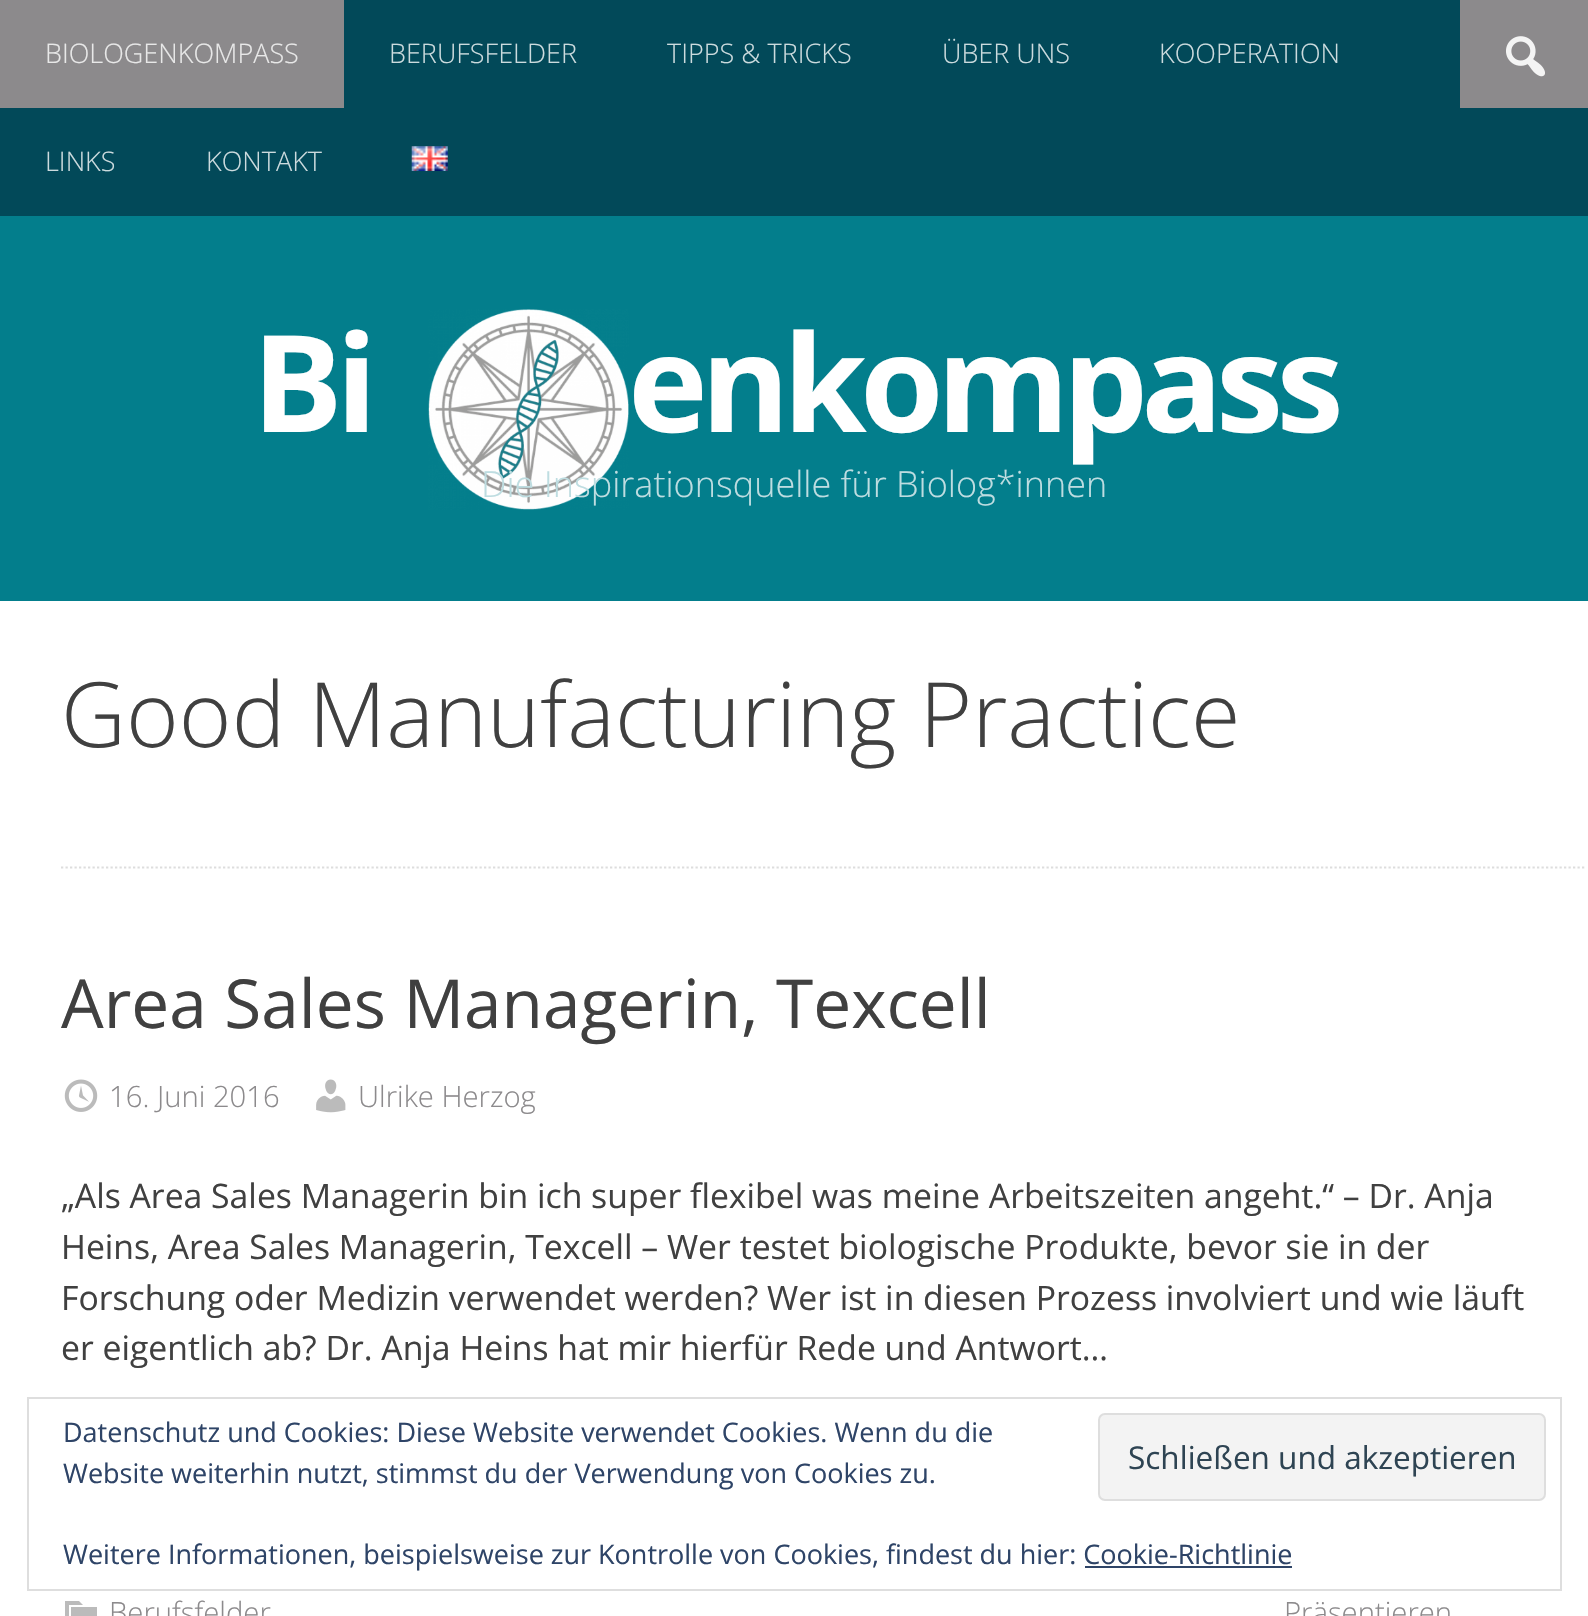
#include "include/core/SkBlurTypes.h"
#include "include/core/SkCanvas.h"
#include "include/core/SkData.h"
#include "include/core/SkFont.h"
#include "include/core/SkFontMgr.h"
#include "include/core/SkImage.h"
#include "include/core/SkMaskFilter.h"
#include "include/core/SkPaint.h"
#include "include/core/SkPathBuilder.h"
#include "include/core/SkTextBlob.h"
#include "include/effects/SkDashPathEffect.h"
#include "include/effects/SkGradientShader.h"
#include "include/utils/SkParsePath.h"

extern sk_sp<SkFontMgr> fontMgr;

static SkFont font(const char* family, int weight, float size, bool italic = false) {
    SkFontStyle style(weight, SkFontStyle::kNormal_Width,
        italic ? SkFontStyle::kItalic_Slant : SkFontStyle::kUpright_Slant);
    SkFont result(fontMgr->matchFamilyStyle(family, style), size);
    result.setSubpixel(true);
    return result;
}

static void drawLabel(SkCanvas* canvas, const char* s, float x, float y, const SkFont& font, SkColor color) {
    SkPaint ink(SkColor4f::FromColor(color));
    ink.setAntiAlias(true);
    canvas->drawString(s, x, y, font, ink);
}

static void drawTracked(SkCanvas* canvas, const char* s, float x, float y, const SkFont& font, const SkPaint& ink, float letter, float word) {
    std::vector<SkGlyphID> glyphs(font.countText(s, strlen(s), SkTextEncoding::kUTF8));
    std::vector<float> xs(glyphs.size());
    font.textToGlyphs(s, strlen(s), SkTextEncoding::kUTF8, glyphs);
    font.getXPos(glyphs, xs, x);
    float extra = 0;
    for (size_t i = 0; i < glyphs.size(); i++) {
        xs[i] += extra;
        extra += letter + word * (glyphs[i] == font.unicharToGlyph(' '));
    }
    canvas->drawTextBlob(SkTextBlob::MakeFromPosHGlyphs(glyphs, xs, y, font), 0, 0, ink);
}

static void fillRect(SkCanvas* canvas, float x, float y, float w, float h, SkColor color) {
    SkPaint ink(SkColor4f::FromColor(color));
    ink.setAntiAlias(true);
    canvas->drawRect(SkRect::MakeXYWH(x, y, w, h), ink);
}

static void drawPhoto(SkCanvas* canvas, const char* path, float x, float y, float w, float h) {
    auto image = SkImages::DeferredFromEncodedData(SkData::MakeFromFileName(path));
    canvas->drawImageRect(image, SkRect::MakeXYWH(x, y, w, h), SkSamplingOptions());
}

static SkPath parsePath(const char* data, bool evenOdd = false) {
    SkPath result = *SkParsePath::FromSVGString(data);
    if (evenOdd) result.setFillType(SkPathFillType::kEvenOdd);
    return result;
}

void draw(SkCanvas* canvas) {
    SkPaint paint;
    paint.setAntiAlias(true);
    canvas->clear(0xFFFFFFFF);
    fillRect(canvas, 0, 0, 1588, 216, 0xFF024959);
    fillRect(canvas, 0, 0, 344, 108, 0xFF8C8A8C);
    SkFont font1 = font("Open Sans", 300, 27);
    drawLabel(canvas, "BIOLOGENKOMPASS", 45, 63, font1, 0xFFE8E8E8);
    drawLabel(canvas, "BERUFSFELDER", 389, 63, font1, 0xFFCCDBDE);
    drawLabel(canvas, "TIPPS & TRICKS", 667, 63, font1, 0xFFCCDBDE);
    drawLabel(canvas, "ÜBER UNS", 942, 63, font1, 0xFFCCDBDE);
    drawLabel(canvas, "KOOPERATION", 1159, 63, font1, 0xFFCCDBDE);
    drawLabel(canvas, "LINKS", 45, 171, font1, 0xFFCCDBDE);
    drawLabel(canvas, "KONTAKT", 206, 171, font1, 0xFFCCDBDE);
    drawPhoto(canvas, "assets/img1.png", 411, 146, 37, 25);
    fillRect(canvas, 1460, 0, 128, 108, 0xFF8C8A8C);
    drawPhoto(canvas, "assets/img2.png", 1506, 36, 39, 41);
    fillRect(canvas, 0, 216, 1588, 385, 0xFF037E8C);
    drawPhoto(canvas, "assets/img3.png", 428, 309, 201, 201);
    SkFont font2 = font("Open Sans", 700, 135);
    paint.setColor(0xFFFFFFFF);
    drawTracked(canvas, "Bi", 252, 432, font2, paint, -6.75f, 0);
    drawTracked(canvas, "enkompass", 628, 432, font2, paint, -6.75f, 0);
    SkFont font3 = font("Open Sans", 300, 36);
    drawLabel(canvas, "Die Inspirationsquelle für Biolog*innen", 481, 497, font3, 0xFFBEDDE1);
    paint.setStroke(true);
    paint.setStrokeWidth(2.2f);
    paint.setColor(0xFFDDDDDD);
    paint.setPathEffect(SkDashPathEffect::Make({{2.25f, 2.25f}}, 0));
    canvas->drawPath(parsePath("M61 867.5H1586"), paint);
    paint.setPathEffect(nullptr);
    SkFont font4 = font("Open Sans", 300, 90);
    drawLabel(canvas, "Good Manufacturing Practice", 61, 747, font4, 0xFF404040);
    SkFont font5 = font("Open Sans", 400, 67.5f);
    drawLabel(canvas, "Area Sales Managerin, Texcell", 61, 1028, font5, 0xFF404040);
    drawPhoto(canvas, "assets/img4.png", 64, 1079, 34, 33);
    SkFont font6 = font("Open Sans", 300, 29.25f);
    drawLabel(canvas, "16. Juni 2016", 109, 1107, font6, 0xFF8C8A8C);
    drawPhoto(canvas, "assets/img5.png", 316, 1079, 30, 34);
    drawLabel(canvas, "Ulrike Herzog", 358, 1107, font6, 0xFF8C8A8C);
    SkFont font7 = font("Open Sans", 400, 33.75f);
    drawLabel(canvas, "„Als Area Sales Managerin bin ich super flexibel was meine Arbeitszeiten angeht.“ – Dr. Anja", 61, 1208, font7, 0xFF404040);
    drawLabel(canvas, "Heins, Area Sales Managerin, Texcell – Wer testet biologische Produkte, bevor sie in der", 61, 1259, font7, 0xFF404040);
    drawLabel(canvas, "Forschung oder Medizin verwendet werden? Wer ist in diesen Prozess involviert und wie läuft", 61, 1310, font7, 0xFF404040);
    drawLabel(canvas, "er eigentlich ab? Dr. Anja Heins hat mir hierfür Rede und Antwort…", 61, 1360, font7, 0xFF404040);
    paint.setStroke(false);
    paint.setColor(0xFFBBBBBB);
    canvas->drawPath(parsePath("M71 1607H97V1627.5H65V1601H79L83 1605H69V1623.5H71Z"), paint);
    drawLabel(canvas, "Berufsfelder", 109, 1623, font6, 0xFF8C8A8C);
    drawLabel(canvas, "Präsentieren", 1284, 1623, font6, 0xFF8C8A8C);
    paint.setStroke(true);
    paint.setStrokeWidth(2);
    paint.setColor(0xFFDEDEDE);
    canvas->drawRect(SkRect::MakeXYWH(28, 1398, 1533, 192), paint);
    SkFont font8 = font("Open Sans", 400, 27);
    drawLabel(canvas, "Datenschutz und Cookies: Diese Website verwendet Cookies. Wenn du die", 63, 1442, font8, 0xFF2E4467);
    drawLabel(canvas, "Website weiterhin nutzt, stimmst du der Verwendung von Cookies zu.", 63, 1483, font8, 0xFF2E4467);
    paint.setStroke(false);
    paint.setColor(0xFFF3F3F3);
    canvas->drawRoundRect(SkRect::MakeXYWH(1099, 1414, 446, 86), 6, 6, paint);
    paint.setStroke(true);
    paint.setColor(0xFFDEDEDE);
    canvas->drawRoundRect(SkRect::MakeXYWH(1099, 1414, 446, 86), 6, 6, paint);
    SkFont font9 = font("Open Sans", 400, 31.5f);
    drawLabel(canvas, "Schließen und akzeptieren", 1128, 1469, font9, 0xFF2E4453);
    drawLabel(canvas, "Weitere Informationen, beispielsweise zur Kontrolle von Cookies, findest du hier: Cookie-Richtlinie", 63, 1564, font8, 0xFF2E4467);
    fillRect(canvas, 1085, 1566, 207, 2, 0xFF2E4467);
}
